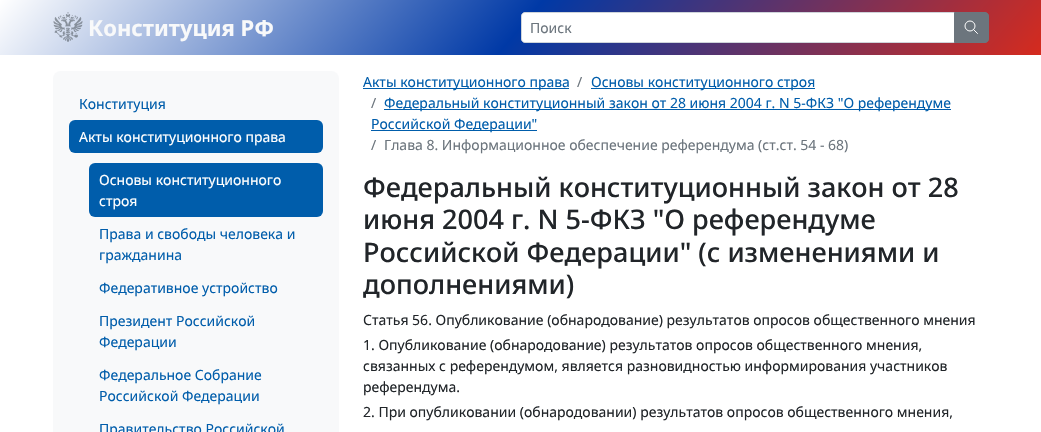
#include "include/core/SkBlurTypes.h"
#include "include/core/SkCanvas.h"
#include "include/core/SkData.h"
#include "include/core/SkFont.h"
#include "include/core/SkFontMgr.h"
#include "include/core/SkImage.h"
#include "include/core/SkMaskFilter.h"
#include "include/core/SkPaint.h"
#include "include/core/SkPathBuilder.h"
#include "include/core/SkTextBlob.h"
#include "include/effects/SkDashPathEffect.h"
#include "include/effects/SkGradientShader.h"
#include "include/utils/SkParsePath.h"

extern sk_sp<SkFontMgr> fontMgr;

static SkFont font(const char* family, int weight, float size, bool italic = false) {
    SkFontStyle style(weight, SkFontStyle::kNormal_Width,
        italic ? SkFontStyle::kItalic_Slant : SkFontStyle::kUpright_Slant);
    SkFont result(fontMgr->matchFamilyStyle(family, style), size);
    result.setSubpixel(true);
    return result;
}

static void drawLabel(SkCanvas* canvas, const char* s, float x, float y, const SkFont& font, SkColor color) {
    SkPaint ink(SkColor4f::FromColor(color));
    ink.setAntiAlias(true);
    canvas->drawString(s, x, y, font, ink);
}

static void fillRect(SkCanvas* canvas, float x, float y, float w, float h, SkColor color) {
    SkPaint ink(SkColor4f::FromColor(color));
    ink.setAntiAlias(true);
    canvas->drawRect(SkRect::MakeXYWH(x, y, w, h), ink);
}

static void fillRRect(SkCanvas* canvas, float x, float y, float w, float h, float radius, SkColor color) {
    SkPaint ink(SkColor4f::FromColor(color));
    ink.setAntiAlias(true);
    canvas->drawRoundRect(SkRect::MakeXYWH(x, y, w, h), radius, radius, ink);
}

static void drawPhoto(SkCanvas* canvas, const char* path, float x, float y, float w, float h) {
    auto image = SkImages::DeferredFromEncodedData(SkData::MakeFromFileName(path));
    canvas->drawImageRect(image, SkRect::MakeXYWH(x, y, w, h), SkSamplingOptions());
}

static SkPath parsePath(const char* data, bool evenOdd = false) {
    SkPath result = *SkParsePath::FromSVGString(data);
    if (evenOdd) result.setFillType(SkPathFillType::kEvenOdd);
    return result;
}

void draw(SkCanvas* canvas) {
    SkPaint paint;
    paint.setAntiAlias(true);
    canvas->clear(0xFFFFFFFF);
    {
        const SkColor colors[] = {0xFFFFFFFF, 0xFF0039A6, 0xFFD52B1E};
        const float stops[] = {0, 0.5f, 1};
        const SkPoint ends[] = {{202, -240}, {839, 295}};
        paint.setShader(SkGradientShader::MakeLinear(ends, colors, stops, 3, SkTileMode::kClamp));
        paint.setAlpha(255);
    }
    canvas->drawRect(SkRect::MakeXYWH(0, 0, 1041, 55), paint);
    drawPhoto(canvas, "assets/img1.png", 53, 12, 30, 30);
    SkFont font1 = font("Noto Sans", 700, 22);
    drawLabel(canvas, "Конституция РФ", 88, 36, font1, 0xFFF8F9FA);
    paint.setShader(nullptr);
    paint.setColor(0xFFFFFFFF);
    canvas->drawPath(parsePath("M525 12.5H954.5V42.5H525C523 42.5 521.5 41 521.5 39V16C521.5 14 523 12.5 525 12.5Z"), paint);
    paint.setStroke(true);
    paint.setStrokeWidth(1);
    paint.setColor(0xFFCED4DA);
    canvas->drawPath(parsePath("M525 12.5H954.5V42.5H525C523 42.5 521.5 41 521.5 39V16C521.5 14 523 12.5 525 12.5Z"), paint);
    SkFont font2 = font("Noto Sans", 400, 14);
    drawLabel(canvas, "Поиск", 530, 33, font2, 0xFF6C757D);
    paint.setStroke(false);
    paint.setColor(0xFF6C757D);
    canvas->drawPath(parsePath("M954.5 12.5H985C987 12.5 988.5 14 988.5 16V39C988.5 41 987 42.5 985 42.5H954.5Z"), paint);
    paint.setStroke(true);
    canvas->drawPath(parsePath("M954.5 12.5H985C987 12.5 988.5 14 988.5 16V39C988.5 41 987 42.5 985 42.5H954.5Z"), paint);
    paint.setColor(0xFFFFFFFF);
    canvas->drawCircle(970, 26, 5, paint);
    paint.setStrokeCap(SkPaint::kRound_Cap);
    paint.setStrokeJoin(SkPaint::kRound_Join);
    canvas->drawPath(parsePath("M977.5 33.5L973.5 29.5"), paint);
    fillRRect(canvas, 53, 71, 286, 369, 8, 0xFFF8F9FA);
    drawLabel(canvas, "Конституция", 79, 109, font2, 0xFF005DAB);
    fillRRect(canvas, 69, 120, 254, 33, 6, 0xFF005DAB);
    drawLabel(canvas, "Акты конституционного права", 79, 142, font2, 0xFFFFFFFF);
    fillRRect(canvas, 89, 163, 234, 54, 6, 0xFF005DAB);
    drawLabel(canvas, "Основы конституционного", 99, 185, font2, 0xFFFFFFFF);
    drawLabel(canvas, "строя", 99, 206, font2, 0xFFFFFFFF);
    drawLabel(canvas, "Права и свободы человека и", 99, 239, font2, 0xFF005DAB);
    drawLabel(canvas, "гражданина", 99, 260, font2, 0xFF005DAB);
    drawLabel(canvas, "Федеративное устройство", 99, 293, font2, 0xFF005DAB);
    drawLabel(canvas, "Президент Российской", 99, 326, font2, 0xFF005DAB);
    drawLabel(canvas, "Федерации", 99, 347, font2, 0xFF005DAB);
    drawLabel(canvas, "Федеральное Собрание", 99, 380, font2, 0xFF005DAB);
    drawLabel(canvas, "Российской Федерации", 99, 401, font2, 0xFF005DAB);
    drawLabel(canvas, "Правительство Российской", 99, 434, font2, 0xFF005DAB);
    fillRect(canvas, 363, 88, 206, 1, 0xFF005DAB);
    drawLabel(canvas, "Акты конституционного права", 363, 87, font2, 0xFF005DAB);
    drawLabel(canvas, "/", 577, 87, font2, 0xFF6C757D);
    fillRect(canvas, 591, 88, 224, 1, 0xFF005DAB);
    drawLabel(canvas, "Основы конституционного строя", 591, 87, font2, 0xFF005DAB);
    drawLabel(canvas, "/", 371, 108, font2, 0xFF6C757D);
    fillRect(canvas, 384, 109, 567, 1, 0xFF005DAB);
    drawLabel(canvas, "Федеральный конституционный закон от 28 июня 2004 г. N 5-ФКЗ \"О референдуме", 384, 108, font2, 0xFF005DAB);
    fillRect(canvas, 371, 130, 166, 1, 0xFF005DAB);
    drawLabel(canvas, "Российской Федерации\"", 371, 129, font2, 0xFF005DAB);
    drawLabel(canvas, "/", 371, 150, font2, 0xFF6C757D);
    drawLabel(canvas, "Глава 8. Информационное обеспечение референдума (ст.ст. 54 - 68)", 384, 150, font2, 0xFF6C757D);
    SkFont font3 = font("Noto Sans", 500, 27.05f);
    drawLabel(canvas, "Федеральный конституционный закон от 28", 363, 197, font3, 0xFF212529);
    drawLabel(canvas, "июня 2004 г. N 5-ФКЗ \"О референдуме", 363, 229, font3, 0xFF212529);
    drawLabel(canvas, "Российской Федерации\" (с изменениями и", 363, 262, font3, 0xFF212529);
    drawLabel(canvas, "дополнениями)", 363, 294, font3, 0xFF212529);
    drawLabel(canvas, "Статья 56. Опубликование (обнародование) результатов опросов общественного мнения", 363, 325, font2, 0xFF212529);
    drawLabel(canvas, "1. Опубликование (обнародование) результатов опросов общественного мнения,", 363, 350, font2, 0xFF212529);
    drawLabel(canvas, "связанных с референдумом, является разновидностью информирования участников", 363, 371, font2, 0xFF212529);
    drawLabel(canvas, "референдума.", 363, 392, font2, 0xFF212529);
    drawLabel(canvas, "2. При опубликовании (обнародовании) результатов опросов общественного мнения,", 363, 417, font2, 0xFF212529);
}
